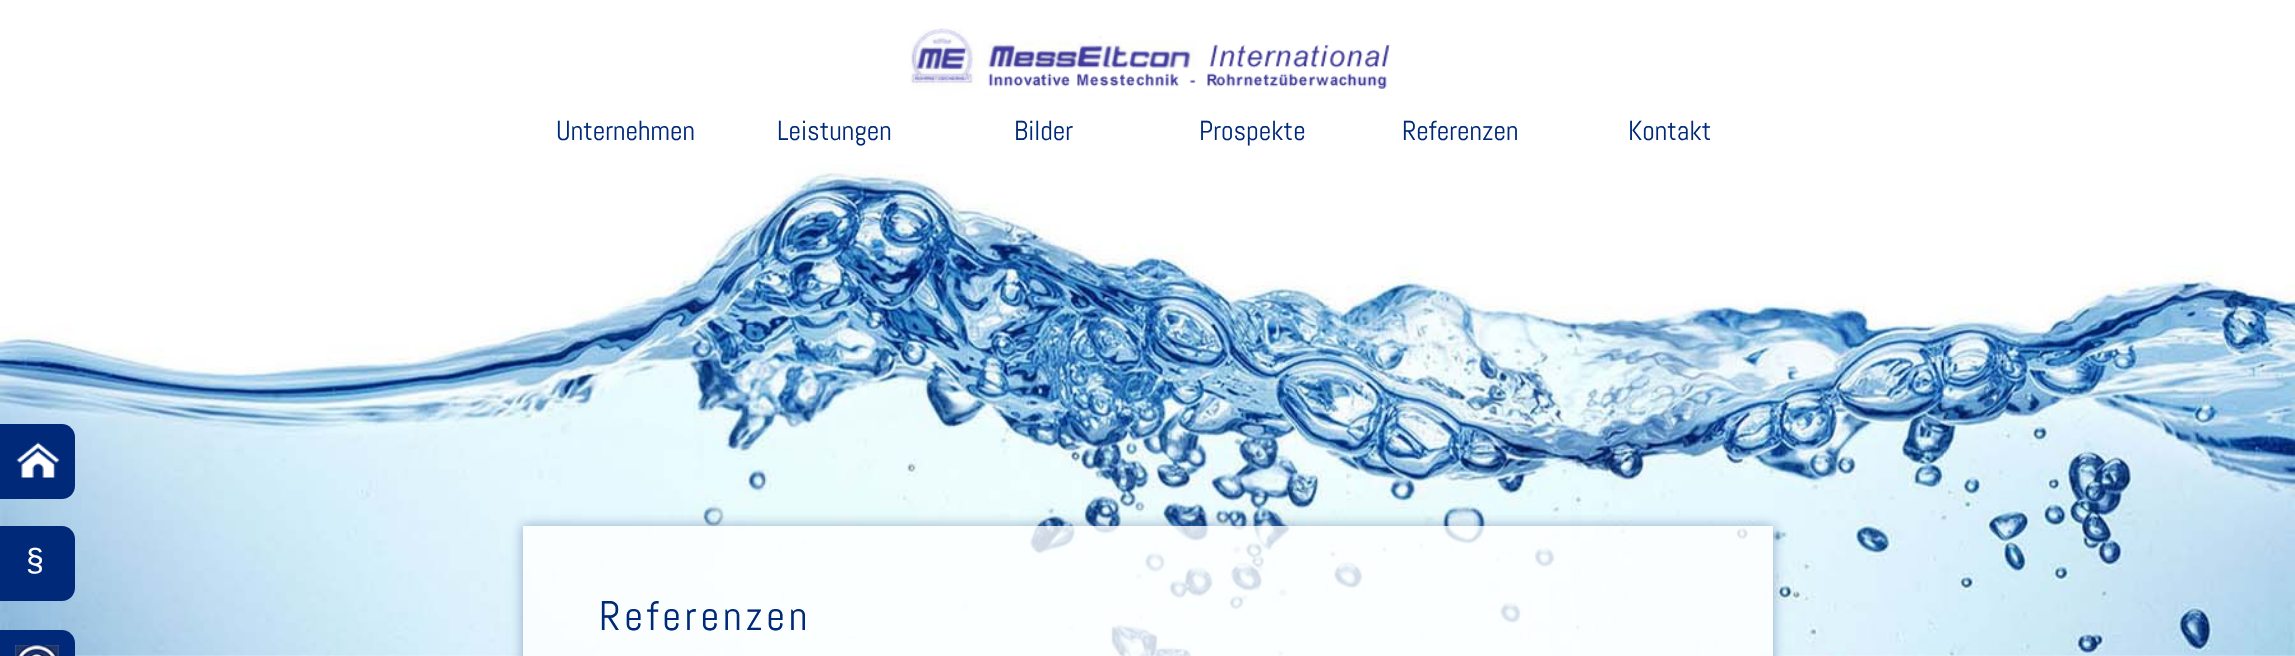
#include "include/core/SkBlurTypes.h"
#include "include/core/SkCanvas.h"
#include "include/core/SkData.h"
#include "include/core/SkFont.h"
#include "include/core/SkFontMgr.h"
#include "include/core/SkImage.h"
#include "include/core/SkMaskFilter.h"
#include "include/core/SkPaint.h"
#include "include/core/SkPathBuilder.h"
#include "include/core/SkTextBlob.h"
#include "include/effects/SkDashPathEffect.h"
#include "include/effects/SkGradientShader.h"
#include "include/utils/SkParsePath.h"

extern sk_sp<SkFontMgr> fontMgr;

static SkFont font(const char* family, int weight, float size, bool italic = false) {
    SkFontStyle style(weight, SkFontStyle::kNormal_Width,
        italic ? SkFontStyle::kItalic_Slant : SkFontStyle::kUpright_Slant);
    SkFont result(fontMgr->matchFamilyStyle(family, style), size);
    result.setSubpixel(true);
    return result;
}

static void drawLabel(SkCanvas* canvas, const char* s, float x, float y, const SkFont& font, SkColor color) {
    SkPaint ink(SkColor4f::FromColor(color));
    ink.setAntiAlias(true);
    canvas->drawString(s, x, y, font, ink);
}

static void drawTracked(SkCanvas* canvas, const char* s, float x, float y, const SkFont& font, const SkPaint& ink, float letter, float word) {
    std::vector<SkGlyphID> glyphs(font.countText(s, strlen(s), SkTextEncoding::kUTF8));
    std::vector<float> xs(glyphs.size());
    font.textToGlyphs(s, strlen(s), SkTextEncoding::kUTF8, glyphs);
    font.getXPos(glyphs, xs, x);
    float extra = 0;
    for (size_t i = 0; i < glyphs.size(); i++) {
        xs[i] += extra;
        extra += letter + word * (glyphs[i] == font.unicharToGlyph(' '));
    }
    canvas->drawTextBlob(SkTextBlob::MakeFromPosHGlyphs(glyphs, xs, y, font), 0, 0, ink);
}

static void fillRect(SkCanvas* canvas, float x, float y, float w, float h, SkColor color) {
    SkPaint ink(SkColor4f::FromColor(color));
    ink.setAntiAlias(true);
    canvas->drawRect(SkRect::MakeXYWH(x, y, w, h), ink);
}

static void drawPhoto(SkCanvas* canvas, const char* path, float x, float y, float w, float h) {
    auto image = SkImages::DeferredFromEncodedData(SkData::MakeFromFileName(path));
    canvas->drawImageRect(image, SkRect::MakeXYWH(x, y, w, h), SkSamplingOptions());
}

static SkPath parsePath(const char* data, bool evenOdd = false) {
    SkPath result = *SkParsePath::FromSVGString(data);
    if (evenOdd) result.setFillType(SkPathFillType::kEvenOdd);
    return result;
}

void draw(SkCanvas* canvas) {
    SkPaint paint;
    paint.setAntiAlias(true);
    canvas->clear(0xFFFFFFFF);
    drawPhoto(canvas, "assets/img1.png", 0, 164, 2295, 492);
    drawPhoto(canvas, "assets/img2.png", 909, 28, 482, 67);
    SkFont font1 = font("Abel", 400, 27.5f);
    drawLabel(canvas, "Unternehmen", 556, 140, font1, 0xFF002A79);
    drawLabel(canvas, "Leistungen", 777, 140, font1, 0xFF002A79);
    drawLabel(canvas, "Bilder", 1014, 140, font1, 0xFF002A79);
    drawLabel(canvas, "Prospekte", 1199, 140, font1, 0xFF002A79);
    drawLabel(canvas, "Referenzen", 1402, 140, font1, 0xFF002A79);
    drawLabel(canvas, "Kontakt", 1628, 140, font1, 0xFF002A79);
    paint.setColor(0xFF002A79);
    canvas->drawPath(parsePath("M0 424H62C69 424 75 430 75 437V486C75 493 69 499 62 499H0Z"), paint);
    drawPhoto(canvas, "assets/img3.png", 16, 442, 44, 36);
    canvas->drawPath(parsePath("M0 526H62C69 526 75 532 75 539V588C75 595 69 601 62 601H0Z"), paint);
    SkFont font2 = font("Liberation Sans", 400, 32);
    drawLabel(canvas, "§", 26, 571, font2, 0xFFFFFFFF);
    canvas->drawPath(parsePath("M0 630H62C69 630 75 636 75 643V656C75 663 69 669 62 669H0Z"), paint);
    drawPhoto(canvas, "assets/img4.png", 15, 645, 44, 11);
    canvas->save();
    canvas->clipPath(parsePath("M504 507H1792V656H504ZM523 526H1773V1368H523Z", true), true);
    paint.setColor(0x33002A79);
    paint.setMaskFilter(SkMaskFilter::MakeBlur(kNormal_SkBlurStyle, 6));
    canvas->drawRect(SkRect::MakeXYWH(523, 526, 1250, 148), paint);
    paint.setMaskFilter(nullptr);
    paint.setMaskFilter(SkMaskFilter::MakeBlur(kNormal_SkBlurStyle, 6));
    canvas->drawRect(SkRect::MakeXYWH(523, 526, 1250, 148), paint);
    paint.setMaskFilter(nullptr);
    canvas->restore();
    fillRect(canvas, 523, 526, 1250, 130, 0xCCFFFFFF);
    SkFont font3 = font("Abel", 400, 41.25f);
    paint.setColor(0xFF002A79);
    drawTracked(canvas, "Referenzen", 599, 630, font3, paint, 3.75f, 0);
}
